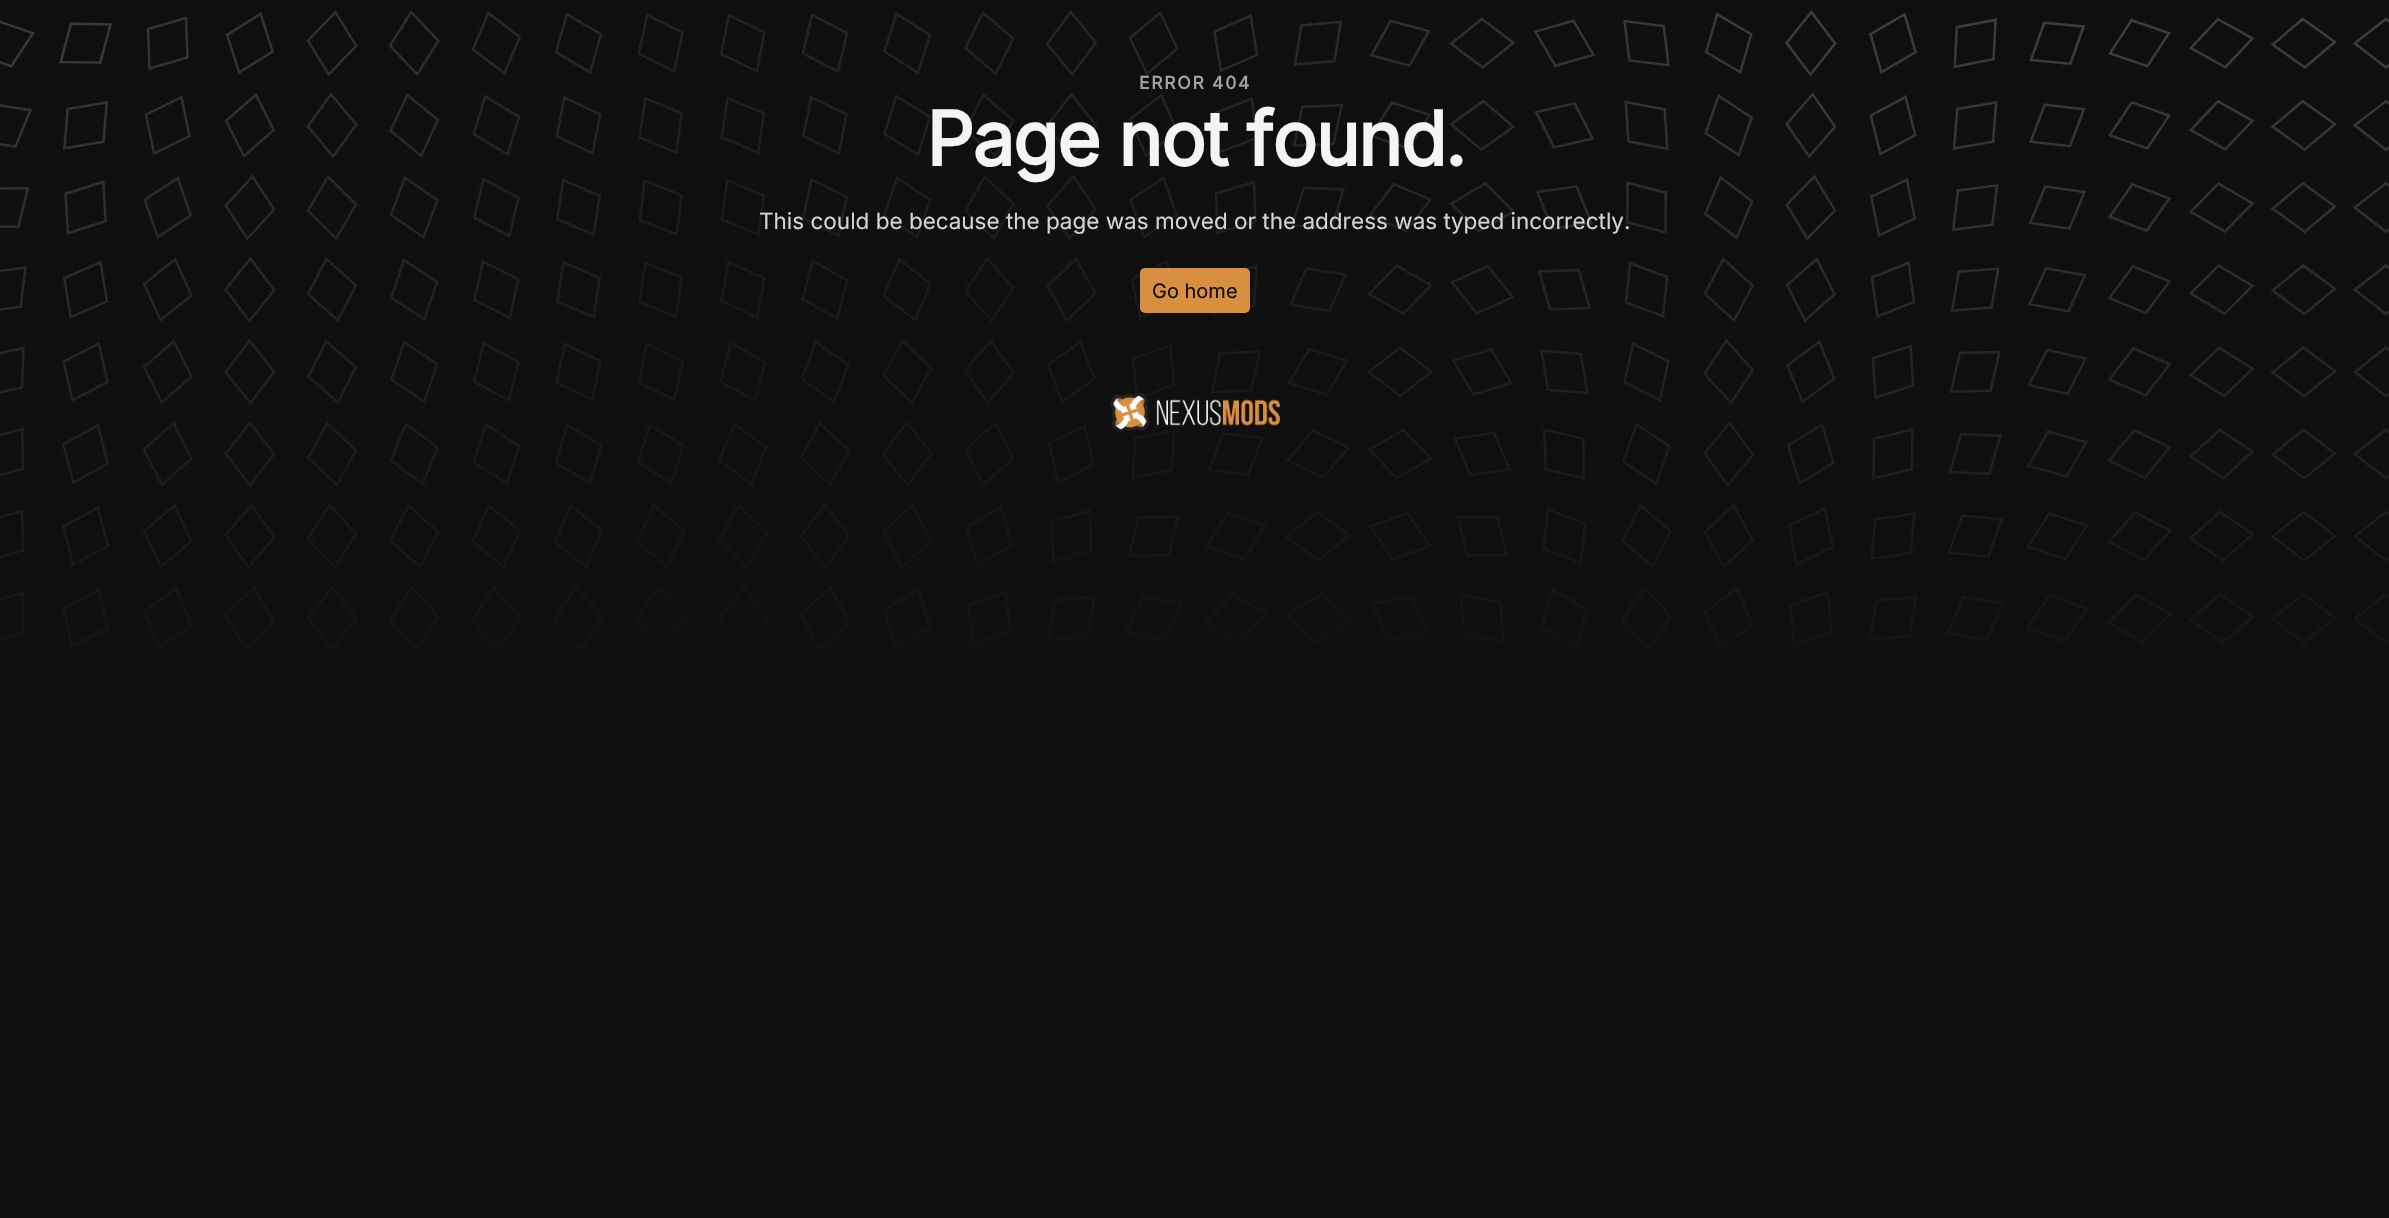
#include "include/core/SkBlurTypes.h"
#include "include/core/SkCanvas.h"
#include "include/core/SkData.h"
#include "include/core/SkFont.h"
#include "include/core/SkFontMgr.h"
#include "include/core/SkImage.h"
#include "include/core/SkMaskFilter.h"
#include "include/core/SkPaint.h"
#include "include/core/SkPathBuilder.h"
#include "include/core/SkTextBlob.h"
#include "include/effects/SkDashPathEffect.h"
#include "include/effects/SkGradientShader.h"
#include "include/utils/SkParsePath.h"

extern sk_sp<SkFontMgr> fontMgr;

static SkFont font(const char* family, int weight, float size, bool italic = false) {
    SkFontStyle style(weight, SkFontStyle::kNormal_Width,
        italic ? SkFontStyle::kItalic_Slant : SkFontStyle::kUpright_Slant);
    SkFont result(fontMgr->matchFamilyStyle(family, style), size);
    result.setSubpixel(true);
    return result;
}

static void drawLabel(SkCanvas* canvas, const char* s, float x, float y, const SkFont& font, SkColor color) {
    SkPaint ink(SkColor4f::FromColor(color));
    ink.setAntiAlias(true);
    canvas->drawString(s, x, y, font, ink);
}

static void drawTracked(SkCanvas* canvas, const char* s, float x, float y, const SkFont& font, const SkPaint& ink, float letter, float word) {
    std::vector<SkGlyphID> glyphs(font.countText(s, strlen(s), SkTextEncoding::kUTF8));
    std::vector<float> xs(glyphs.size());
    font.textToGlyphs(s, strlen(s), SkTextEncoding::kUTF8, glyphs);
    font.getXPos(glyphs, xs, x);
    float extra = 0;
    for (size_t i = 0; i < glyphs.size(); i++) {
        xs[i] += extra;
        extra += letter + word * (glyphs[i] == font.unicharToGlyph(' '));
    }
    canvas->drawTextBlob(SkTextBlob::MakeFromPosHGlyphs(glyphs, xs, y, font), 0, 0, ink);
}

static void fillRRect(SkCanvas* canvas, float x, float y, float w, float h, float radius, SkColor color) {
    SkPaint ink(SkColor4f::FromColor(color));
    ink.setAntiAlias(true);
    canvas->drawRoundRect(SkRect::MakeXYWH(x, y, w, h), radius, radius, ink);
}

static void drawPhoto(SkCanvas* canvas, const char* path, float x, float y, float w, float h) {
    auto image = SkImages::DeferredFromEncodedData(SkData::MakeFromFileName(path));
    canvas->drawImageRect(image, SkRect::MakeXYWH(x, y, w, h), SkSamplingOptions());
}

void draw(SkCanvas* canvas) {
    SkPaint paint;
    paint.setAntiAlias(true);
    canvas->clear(0xFF0F0F10);
    drawPhoto(canvas, "assets/img1.png", 0, 10, 2389, 639);
    SkFont font1 = font("Inter", 700, 17.5f);
    paint.setColor(0xFFA1A1AA);
    drawTracked(canvas, "ERROR 404", 1139, 89, font1, paint, 1.75f, 0);
    SkFont font2 = font("Inter", 700, 75);
    paint.setColor(0xFFF4F4F5);
    drawTracked(canvas, "Page not found.", 926, 166, font2, paint, -1.75f, 0);
    SkFont font3 = font("Inter", 400, 22.5f);
    drawLabel(canvas, "This could be because the page was moved or the address was typed incorrectly.", 759, 229, font3, 0xFFD4D4D8);
    fillRRect(canvas, 1140, 268, 110, 45, 5, 0xFFD98F40);
    SkFont font4 = font("Inter", 400, 20);
    drawLabel(canvas, "Go home", 1152, 298, font4, 0xFF0F0F10);
    drawPhoto(canvas, "assets/img2.png", 1110, 392, 170, 41);
}
